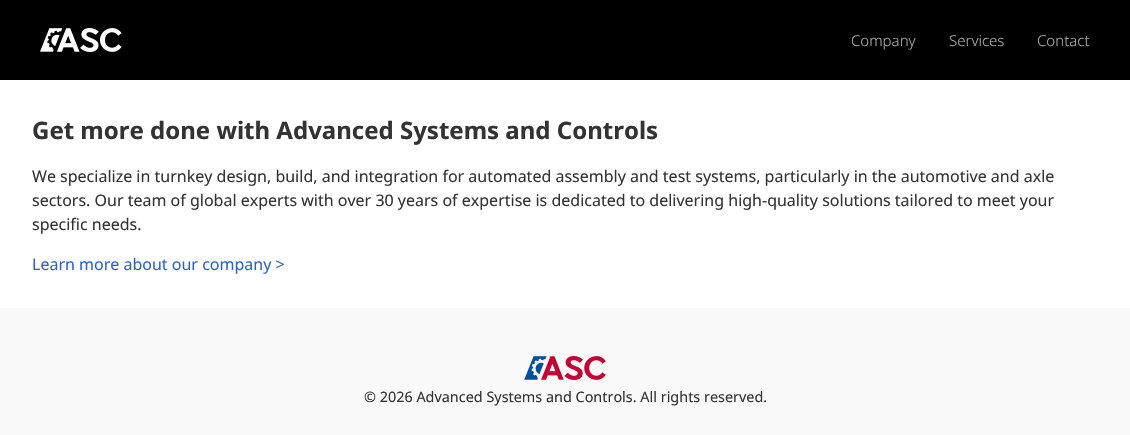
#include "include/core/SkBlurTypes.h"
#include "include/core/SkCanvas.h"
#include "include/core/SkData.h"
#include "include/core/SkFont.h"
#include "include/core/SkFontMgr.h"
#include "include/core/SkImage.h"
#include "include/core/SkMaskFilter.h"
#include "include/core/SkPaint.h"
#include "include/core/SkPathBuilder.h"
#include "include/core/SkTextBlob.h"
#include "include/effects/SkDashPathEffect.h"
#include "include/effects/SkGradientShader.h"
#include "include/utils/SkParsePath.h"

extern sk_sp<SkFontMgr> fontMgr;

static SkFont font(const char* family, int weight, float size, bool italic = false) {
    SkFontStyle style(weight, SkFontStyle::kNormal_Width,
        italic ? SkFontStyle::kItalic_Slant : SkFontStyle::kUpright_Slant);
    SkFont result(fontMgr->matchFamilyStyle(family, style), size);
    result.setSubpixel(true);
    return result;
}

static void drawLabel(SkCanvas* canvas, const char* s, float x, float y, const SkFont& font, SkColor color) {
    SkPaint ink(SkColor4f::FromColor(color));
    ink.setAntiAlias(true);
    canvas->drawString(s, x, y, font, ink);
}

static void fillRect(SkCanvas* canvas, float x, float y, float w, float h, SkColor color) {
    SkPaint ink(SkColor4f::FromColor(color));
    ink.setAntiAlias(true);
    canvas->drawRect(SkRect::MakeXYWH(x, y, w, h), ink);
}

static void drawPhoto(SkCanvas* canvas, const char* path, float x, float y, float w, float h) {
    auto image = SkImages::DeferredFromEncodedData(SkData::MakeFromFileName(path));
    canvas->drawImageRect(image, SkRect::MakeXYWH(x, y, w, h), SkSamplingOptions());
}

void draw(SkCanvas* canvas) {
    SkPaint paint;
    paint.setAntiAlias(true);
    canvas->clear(0xFFF9F9F9);
    fillRect(canvas, 0, 0, 1130, 80, 0xFF000000);
    drawPhoto(canvas, "assets/img1.png", 40, 28, 82, 24);
    SkFont font1 = font("Noto Sans", 300, 15);
    drawLabel(canvas, "Company", 851, 46, font1, 0xFFAAAAAA);
    drawLabel(canvas, "Services", 949, 46, font1, 0xFFAAAAAA);
    drawLabel(canvas, "Contact", 1037, 46, font1, 0xFFAAAAAA);
    fillRect(canvas, 0, 80, 1130, 228, 0xFFFFFFFF);
    SkFont font2 = font("Noto Sans", 700, 24);
    drawLabel(canvas, "Get more done with Advanced Systems and Controls", 32, 139, font2, 0xFF333333);
    SkFont font3 = font("Noto Sans", 400, 16);
    drawLabel(canvas, "We specialize in turnkey design, build, and integration for automated assembly and test systems, particularly in the automotive and axle", 32, 182, font3, 0xFF333333);
    drawLabel(canvas, "sectors. Our team of global experts with over 30 years of expertise is dedicated to delivering high-quality solutions tailored to meet your", 32, 206, font3, 0xFF333333);
    drawLabel(canvas, "specific needs.", 32, 230, font3, 0xFF333333);
    drawLabel(canvas, "Learn more about our company >", 32, 270, font3, 0xFF2C64C4);
    drawPhoto(canvas, "assets/img2.png", 524, 356, 82, 24);
    SkFont font4 = font("Noto Sans", 400, 14.4f);
    drawLabel(canvas, "© 2026 Advanced Systems and Controls. All rights reserved.", 364, 402, font4, 0xFF333333);
}
